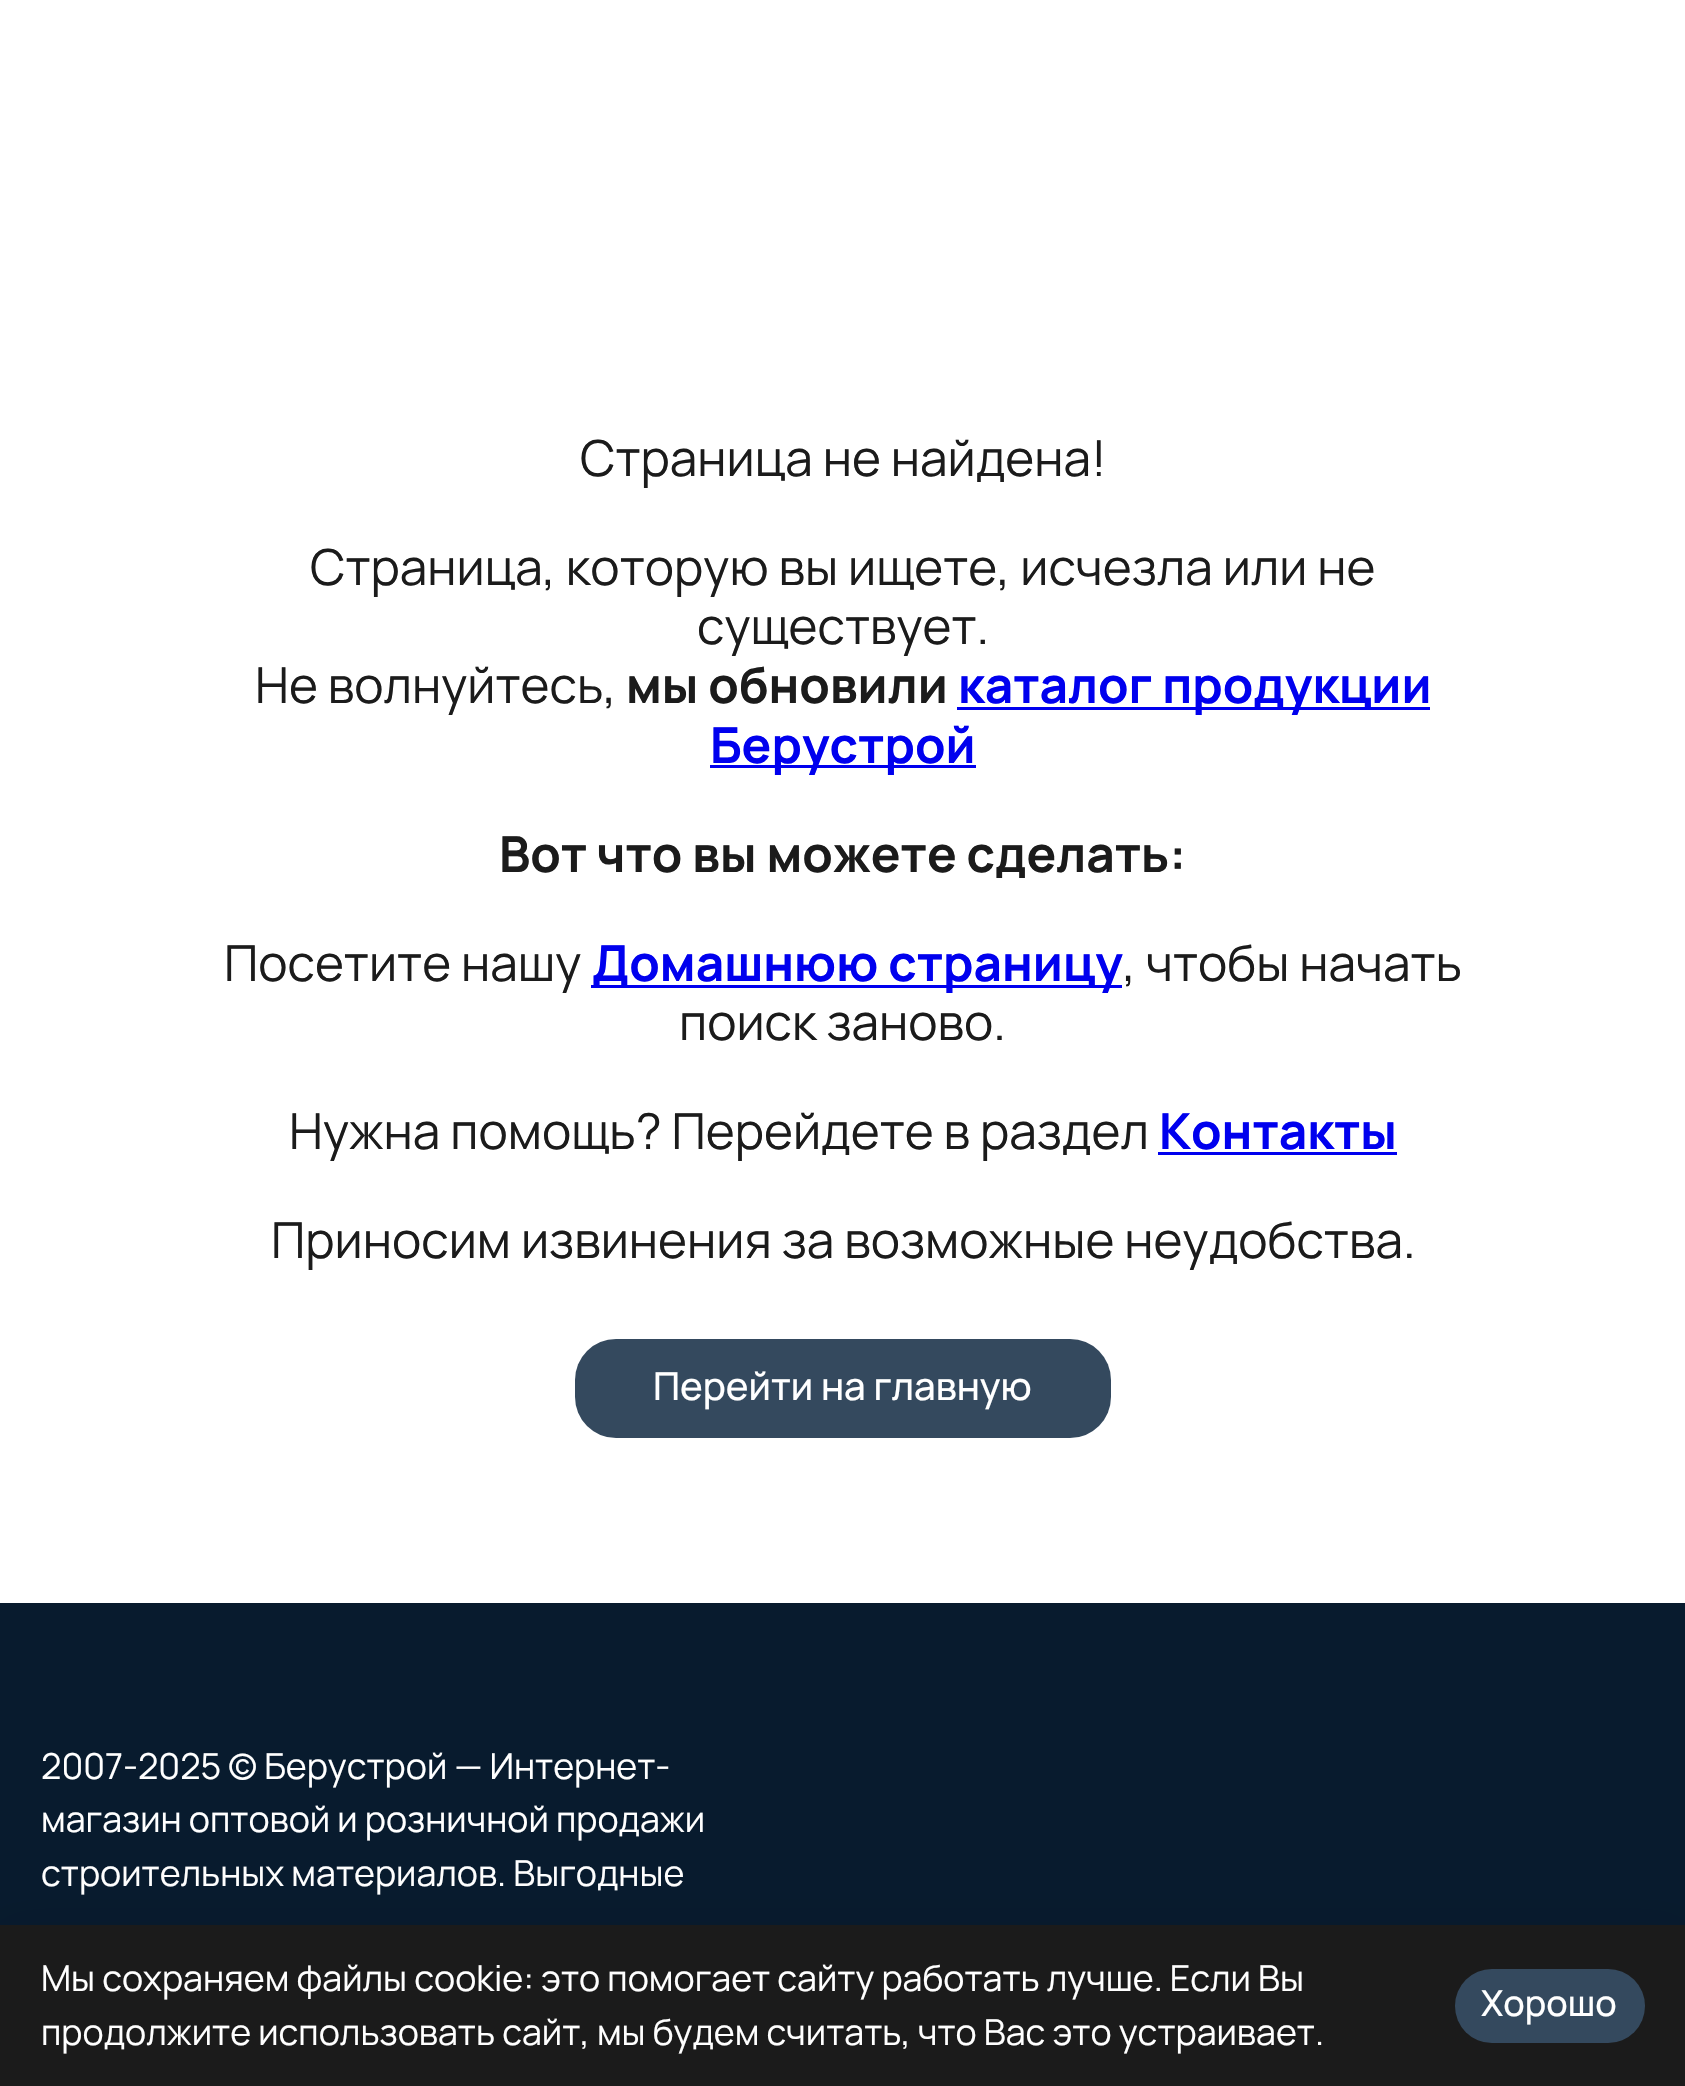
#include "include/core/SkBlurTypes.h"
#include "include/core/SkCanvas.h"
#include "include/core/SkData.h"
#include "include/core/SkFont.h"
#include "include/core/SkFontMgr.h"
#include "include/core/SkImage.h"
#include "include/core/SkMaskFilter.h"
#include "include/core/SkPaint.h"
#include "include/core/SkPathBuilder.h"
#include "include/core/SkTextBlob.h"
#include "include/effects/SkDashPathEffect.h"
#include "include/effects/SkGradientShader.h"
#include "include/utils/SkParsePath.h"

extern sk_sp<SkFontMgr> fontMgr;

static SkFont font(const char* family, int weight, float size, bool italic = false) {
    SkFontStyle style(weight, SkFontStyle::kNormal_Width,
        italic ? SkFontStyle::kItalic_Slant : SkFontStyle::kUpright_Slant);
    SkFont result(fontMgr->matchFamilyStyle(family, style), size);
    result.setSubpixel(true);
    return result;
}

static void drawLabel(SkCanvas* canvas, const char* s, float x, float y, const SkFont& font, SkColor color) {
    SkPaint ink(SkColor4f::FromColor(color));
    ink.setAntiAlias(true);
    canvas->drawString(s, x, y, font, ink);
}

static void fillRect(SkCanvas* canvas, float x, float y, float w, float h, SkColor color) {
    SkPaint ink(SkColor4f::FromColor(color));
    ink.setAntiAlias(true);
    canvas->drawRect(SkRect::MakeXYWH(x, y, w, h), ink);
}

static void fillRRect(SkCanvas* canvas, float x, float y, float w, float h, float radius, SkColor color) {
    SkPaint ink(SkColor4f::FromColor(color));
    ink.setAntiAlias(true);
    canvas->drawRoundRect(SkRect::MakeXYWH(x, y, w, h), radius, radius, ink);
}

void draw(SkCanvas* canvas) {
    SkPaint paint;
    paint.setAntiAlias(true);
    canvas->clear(0xFFFFFFFF);
    SkFont font1 = font("Manrope", 400, 49.5f);
    drawLabel(canvas, "Страница не найдена!", 580, 476, font1, 0xFF1B1B1B);
    drawLabel(canvas, "Страница, которую вы ищете, исчезла или не", 310, 585, font1, 0xFF1B1B1B);
    drawLabel(canvas, "существует.", 697, 644, font1, 0xFF1B1B1B);
    drawLabel(canvas, "Не волнуйтесь,", 255, 703, font1, 0xFF1B1B1B);
    SkFont font2 = font("Manrope", 700, 49.5f);
    drawLabel(canvas, "мы обновили", 626, 703, font2, 0xFF1B1B1B);
    fillRect(canvas, 957, 707, 473, 3, 0xFF0000EE);
    drawLabel(canvas, "каталог продукции", 958, 703, font2, 0xFF0000EE);
    fillRect(canvas, 710, 765, 266, 3, 0xFF0000EE);
    drawLabel(canvas, "Берустрой", 710, 763, font2, 0xFF0000EE);
    drawLabel(canvas, "Вот что вы можете сделать:", 499, 872, font2, 0xFF1B1B1B);
    drawLabel(canvas, "Посетите нашу", 224, 981, font1, 0xFF1B1B1B);
    fillRect(canvas, 591, 985, 531, 3, 0xFF0000EE);
    drawLabel(canvas, "Домашнюю страницу", 592, 981, font2, 0xFF0000EE);
    drawLabel(canvas, ", чтобы начать", 1123, 981, font1, 0xFF1B1B1B);
    drawLabel(canvas, "поиск заново.", 679, 1040, font1, 0xFF1B1B1B);
    drawLabel(canvas, "Нужна помощь? Перейдете в раздел", 289, 1149, font1, 0xFF1B1B1B);
    drawLabel(canvas, "Контакты", 1159, 1149, font2, 0xFF0000EE);
    fillRect(canvas, 1158, 1152, 239, 3, 0xFF0000EE);
    drawLabel(canvas, "Приносим извинения за возможные неудобства.", 271, 1258, font1, 0xFF1B1B1B);
    fillRRect(canvas, 575, 1339, 536, 99, 41, 0xFF34495E);
    SkFont font3 = font("Manrope", 500, 38.5f);
    drawLabel(canvas, "Перейти на главную", 653, 1400, font3, 0xFFFFFFFF);
    fillRect(canvas, 0, 1603, 1685, 322, 0xFF081B2E);
    SkFont font4 = font("Manrope", 400, 35.75f);
    drawLabel(canvas, "2007-2025 © Берустрой — Интернет-", 41, 1779, font4, 0xFFFFFFFF);
    drawLabel(canvas, "магазин оптовой и розничной продажи", 41, 1832, font4, 0xFFFFFFFF);
    drawLabel(canvas, "строительных материалов. Выгодные", 41, 1886, font4, 0xFFFFFFFF);
    paint.setColor(0x12000000);
    paint.setMaskFilter(SkMaskFilter::MakeBlur(kNormal_SkBlurStyle, 20.5f));
    canvas->drawRect(SkRect::MakeXYWH(0, 1925, 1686, 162), paint);
    paint.setMaskFilter(nullptr);
    fillRect(canvas, 0, 1925, 1685, 161, 0xFF1B1B1B);
    drawLabel(canvas, "Мы сохраняем файлы cookie: это помогает сайту работать лучше. Если Вы", 41, 1991, font4, 0xFFFFFFFF);
    drawLabel(canvas, "продолжите использовать сайт, мы будем считать, что Вас это устраивает.", 41, 2045, font4, 0xFFFFFFFF);
    fillRRect(canvas, 1455, 1969, 190, 74, 37, 0xFF34495E);
    SkFont font5 = font("Manrope", 500, 35.75f);
    drawLabel(canvas, "Хорошо", 1481, 2016, font5, 0xFFFFFFFF);
}
